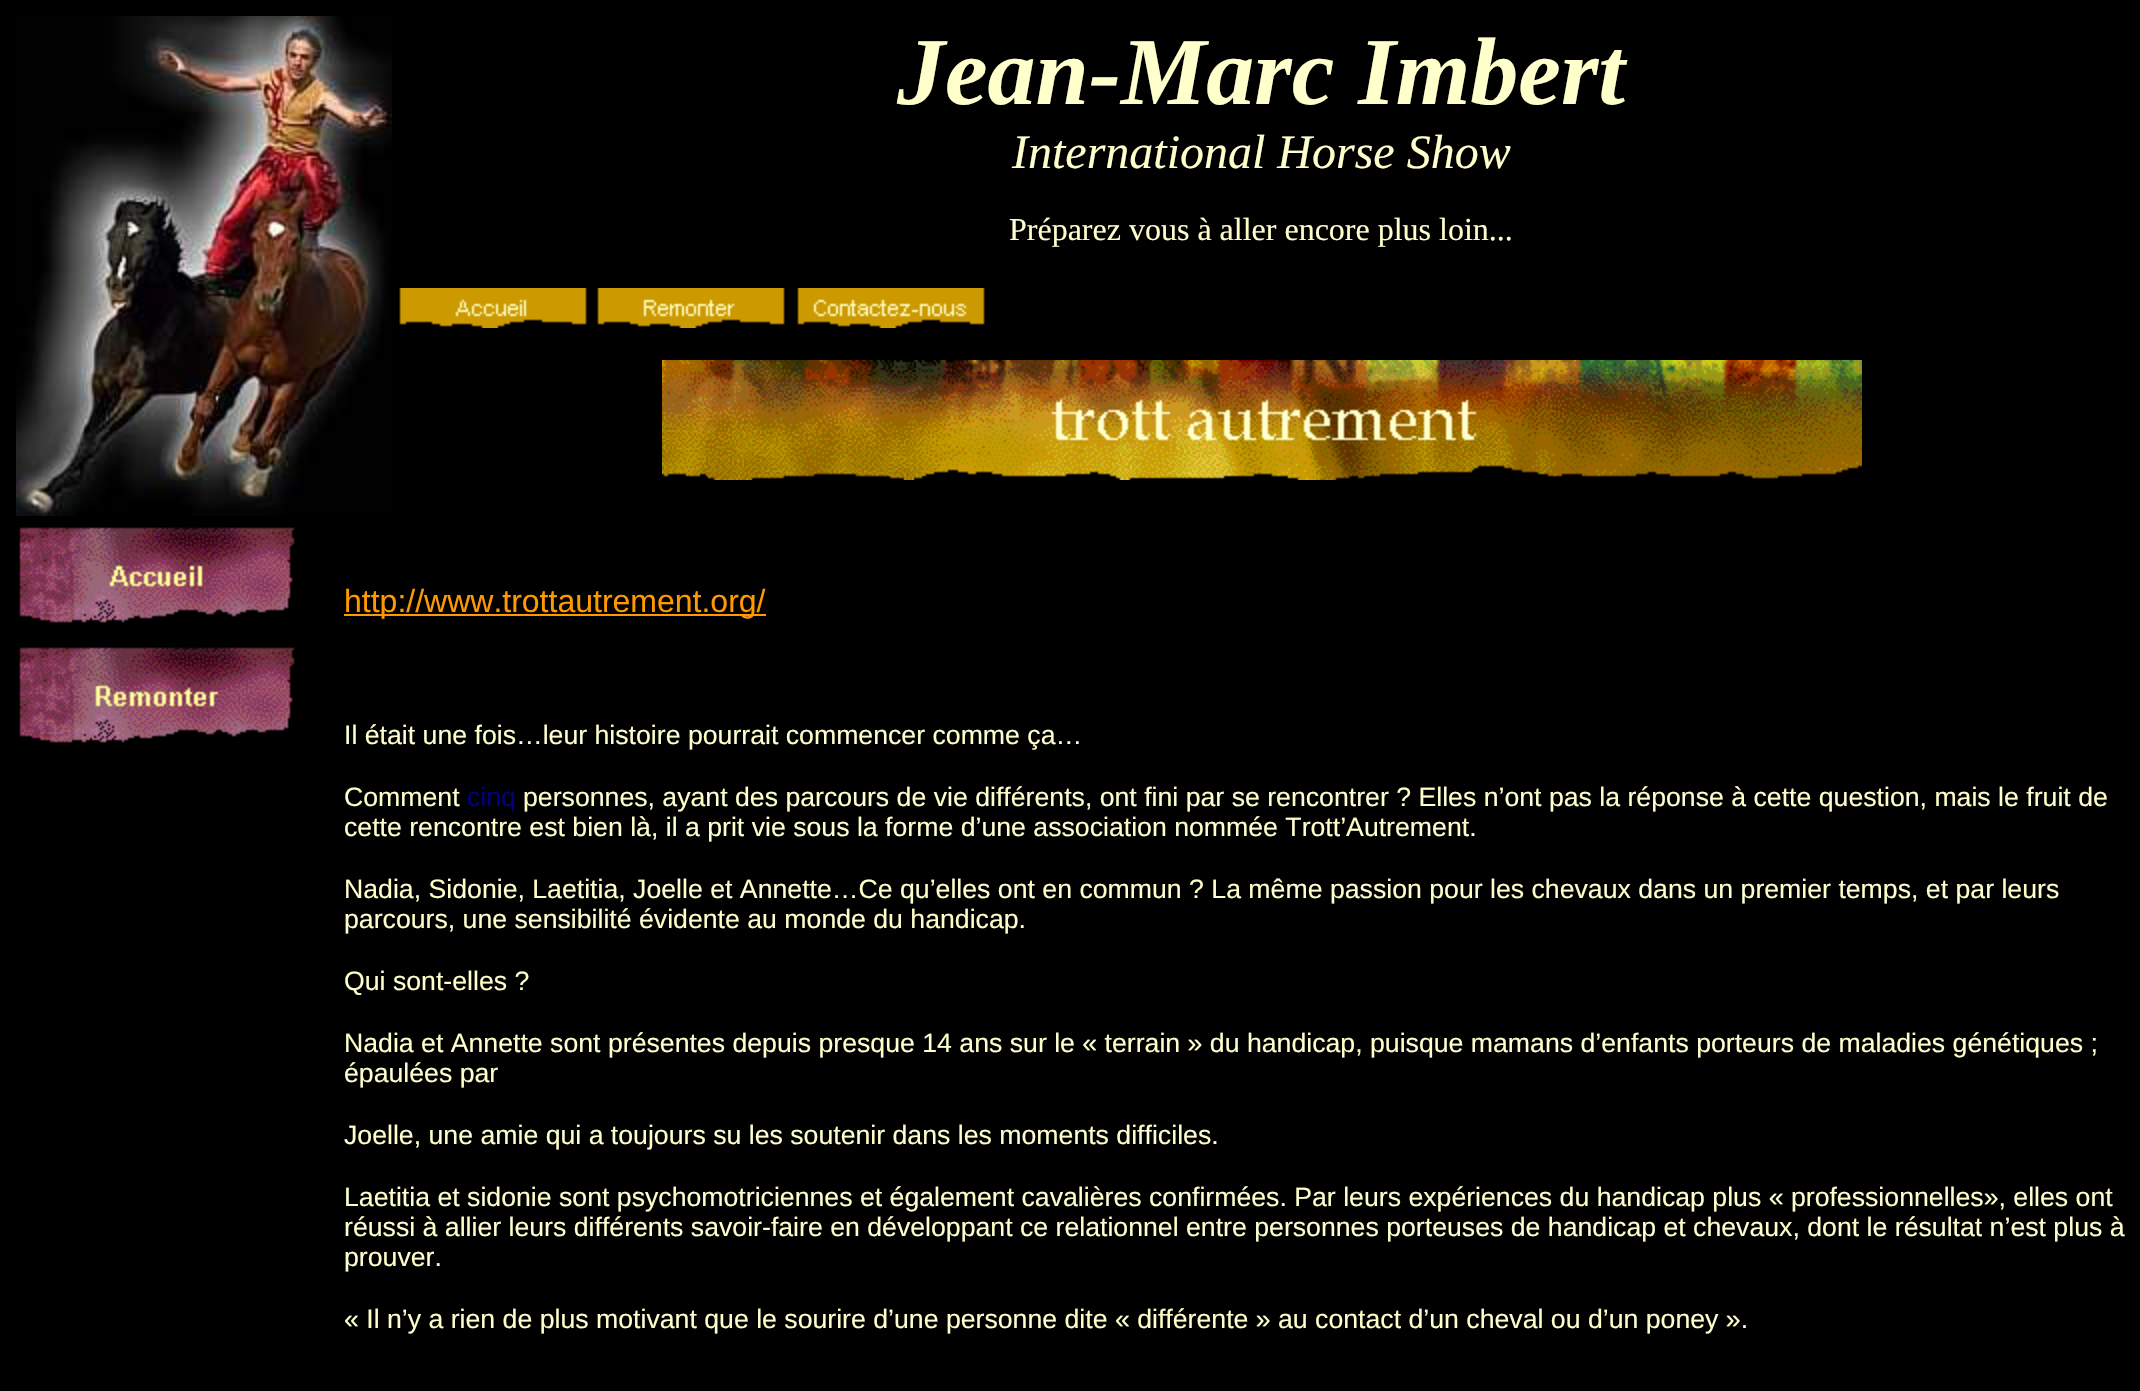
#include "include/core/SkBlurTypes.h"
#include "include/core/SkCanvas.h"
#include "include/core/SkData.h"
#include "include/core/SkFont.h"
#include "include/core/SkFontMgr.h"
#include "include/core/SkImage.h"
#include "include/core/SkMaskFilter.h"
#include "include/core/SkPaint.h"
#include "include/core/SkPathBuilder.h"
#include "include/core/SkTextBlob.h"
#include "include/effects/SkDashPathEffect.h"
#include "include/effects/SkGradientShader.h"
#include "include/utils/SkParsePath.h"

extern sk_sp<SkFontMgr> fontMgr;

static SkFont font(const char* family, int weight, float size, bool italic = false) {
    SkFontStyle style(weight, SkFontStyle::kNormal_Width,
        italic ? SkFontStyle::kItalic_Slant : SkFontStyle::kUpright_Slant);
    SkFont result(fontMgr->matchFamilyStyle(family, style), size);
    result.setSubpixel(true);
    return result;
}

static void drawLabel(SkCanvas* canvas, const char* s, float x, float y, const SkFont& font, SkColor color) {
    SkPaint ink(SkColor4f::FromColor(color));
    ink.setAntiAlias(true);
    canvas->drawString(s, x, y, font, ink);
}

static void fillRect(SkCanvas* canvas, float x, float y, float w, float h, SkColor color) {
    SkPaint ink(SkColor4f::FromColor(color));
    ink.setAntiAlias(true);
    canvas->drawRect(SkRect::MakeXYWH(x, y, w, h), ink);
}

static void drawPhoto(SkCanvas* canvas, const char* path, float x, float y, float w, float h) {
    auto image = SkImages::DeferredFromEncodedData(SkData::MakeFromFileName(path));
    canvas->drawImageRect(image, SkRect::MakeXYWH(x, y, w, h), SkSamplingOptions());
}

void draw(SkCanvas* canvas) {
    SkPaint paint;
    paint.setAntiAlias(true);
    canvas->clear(0xFF000000);
    drawPhoto(canvas, "assets/img1.png", 16, 16, 376, 500);
    SkFont font1 = font("Liberation Serif", 700, 96, true);
    drawLabel(canvas, "Jean-Marc Imbert", 897, 104, font1, 0xFFFFFFCC);
    SkFont font2 = font("Liberation Serif", 400, 48, true);
    drawLabel(canvas, "International Horse Show", 1012, 168, font2, 0xFFFFFFCC);
    SkFont font3 = font("Liberation Serif", 400, 32);
    drawLabel(canvas, "Préparez vous à aller encore plus loin...", 1009, 240, font3, 0xFFFFFFCC);
    drawPhoto(canvas, "assets/img2.png", 399, 288, 188, 40);
    drawPhoto(canvas, "assets/img3.png", 597, 288, 188, 40);
    drawPhoto(canvas, "assets/img4.png", 797, 288, 188, 40);
    drawPhoto(canvas, "assets/img5.png", 662, 360, 1200, 120);
    drawPhoto(canvas, "assets/img6.png", 19, 527, 276, 96);
    drawPhoto(canvas, "assets/img7.png", 19, 647, 276, 96);
    fillRect(canvas, 344, 614, 422, 2, 0xFFFF9900);
    SkFont font4 = font("Liberation Sans", 400, 32);
    drawLabel(canvas, "http://www.trottautrement.org/", 344, 612, font4, 0xFFFF9900);
    SkFont font5 = font("Liberation Sans", 400, 26.67f);
    drawLabel(canvas, "Il était une fois…leur histoire pourrait commencer comme ça…", 344, 744, font5, 0xFFFFFFCC);
    drawLabel(canvas, "Comment", 344, 806, font5, 0xFFFFFFCC);
    drawLabel(canvas, "cinq", 467, 806, font5, 0xFF000080);
    drawLabel(canvas, "personnes, ayant des parcours de vie différents, ont fini par se rencontrer ? Elles n’ont pas la réponse à cette question, mais le fruit de", 523, 806, font5, 0xFFFFFFCC);
    drawLabel(canvas, "cette rencontre est bien là, il a prit vie sous la forme d’une association nommée Trott’Autrement.", 344, 836, font5, 0xFFFFFFCC);
    drawLabel(canvas, "Nadia, Sidonie, Laetitia, Joelle et Annette…Ce qu’elles ont en commun ? La même passion pour les chevaux dans un premier temps, et par leurs", 344, 898, font5, 0xFFFFFFCC);
    drawLabel(canvas, "parcours, une sensibilité évidente au monde du handicap.", 344, 928, font5, 0xFFFFFFCC);
    drawLabel(canvas, "Qui sont-elles ?", 344, 990, font5, 0xFFFFFFCC);
    drawLabel(canvas, "Nadia et Annette sont présentes depuis presque 14 ans sur le « terrain » du handicap, puisque mamans d’enfants porteurs de maladies génétiques ;", 344, 1052, font5, 0xFFFFFFCC);
    drawLabel(canvas, "épaulées par", 344, 1082, font5, 0xFFFFFFCC);
    drawLabel(canvas, "Joelle, une amie qui a toujours su les soutenir dans les moments difficiles.", 344, 1144, font5, 0xFFFFFFCC);
    drawLabel(canvas, "Laetitia et sidonie sont psychomotriciennes et également cavalières confirmées. Par leurs expériences du handicap plus « professionnelles», elles ont", 344, 1206, font5, 0xFFFFFFCC);
    drawLabel(canvas, "réussi à allier leurs différents savoir-faire en développant ce relationnel entre personnes porteuses de handicap et chevaux, dont le résultat n’est plus à", 344, 1236, font5, 0xFFFFFFCC);
    drawLabel(canvas, "prouver.", 344, 1266, font5, 0xFFFFFFCC);
    drawLabel(canvas, "« Il n’y a rien de plus motivant que le sourire d’une personne dite « différente » au contact d’un cheval ou d’un poney ».", 344, 1328, font5, 0xFFFFFFCC);
}
